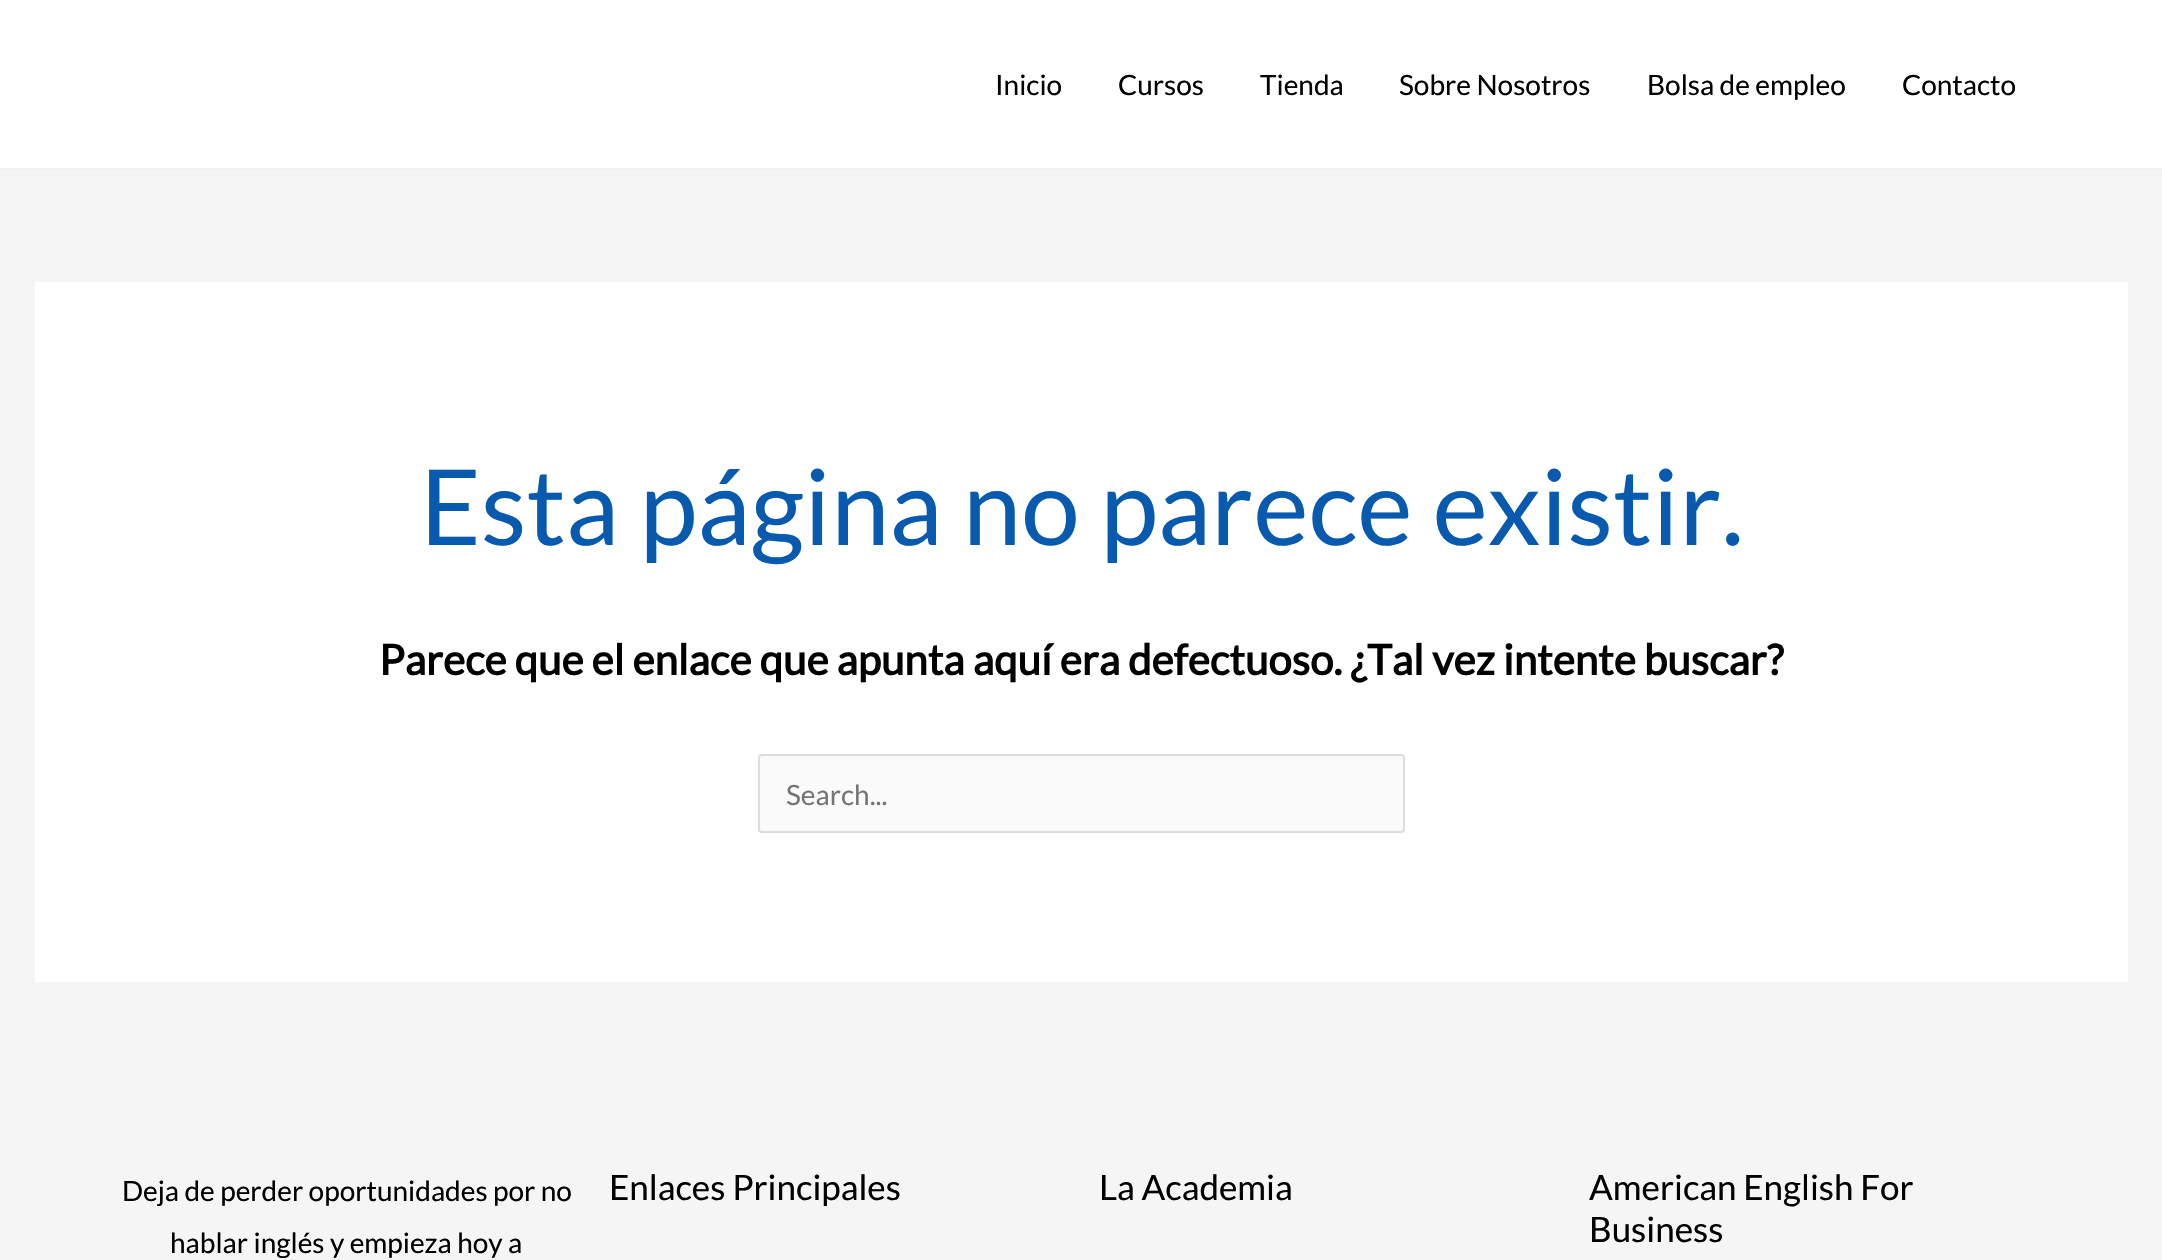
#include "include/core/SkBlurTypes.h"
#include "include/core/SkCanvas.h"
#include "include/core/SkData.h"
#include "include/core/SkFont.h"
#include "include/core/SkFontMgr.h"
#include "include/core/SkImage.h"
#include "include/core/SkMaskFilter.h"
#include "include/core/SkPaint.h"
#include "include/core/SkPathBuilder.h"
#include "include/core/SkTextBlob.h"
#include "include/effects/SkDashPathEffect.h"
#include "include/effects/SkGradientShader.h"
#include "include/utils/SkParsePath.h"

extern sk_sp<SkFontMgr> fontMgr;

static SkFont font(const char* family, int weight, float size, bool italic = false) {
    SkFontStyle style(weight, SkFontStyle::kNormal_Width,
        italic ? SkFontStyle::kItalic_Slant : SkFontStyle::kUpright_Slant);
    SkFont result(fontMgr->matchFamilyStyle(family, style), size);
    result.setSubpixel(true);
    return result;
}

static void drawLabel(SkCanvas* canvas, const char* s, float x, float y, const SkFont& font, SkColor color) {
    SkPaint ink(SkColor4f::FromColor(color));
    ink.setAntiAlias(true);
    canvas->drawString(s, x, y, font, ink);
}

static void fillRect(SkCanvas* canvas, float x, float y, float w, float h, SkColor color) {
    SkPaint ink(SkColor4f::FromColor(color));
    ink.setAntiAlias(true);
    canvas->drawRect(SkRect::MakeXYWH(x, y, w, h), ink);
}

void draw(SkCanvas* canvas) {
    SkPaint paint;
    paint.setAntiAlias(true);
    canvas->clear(0xFFF5F5F5);
    fillRect(canvas, 0, 0, 2162, 168, 0xFFFFFFFF);
    fillRect(canvas, 0, 168, 2162, 2, 0xFFF2F2F2);
    SkFont font1 = font("Lato", 400, 28);
    drawLabel(canvas, "Inicio", 995, 95, font1, 0xFF000000);
    drawLabel(canvas, "Cursos", 1118, 95, font1, 0xFF000000);
    drawLabel(canvas, "Tienda", 1260, 95, font1, 0xFF000000);
    drawLabel(canvas, "Sobre Nosotros", 1399, 95, font1, 0xFF000000);
    drawLabel(canvas, "Bolsa de empleo", 1647, 95, font1, 0xFF000000);
    drawLabel(canvas, "Contacto", 1902, 95, font1, 0xFF000000);
    fillRect(canvas, 35, 282, 2093, 700, 0xFFFFFFFF);
    SkFont font2 = font("Lato", 400, 105);
    drawLabel(canvas, "Esta página no parece existir.", 420, 545, font2, 0xFF075AAE);
    SkFont font3 = font("Lato", 700, 42);
    drawLabel(canvas, "Parece que el enlace que apunta aquí era defectuoso. ¿Tal vez intente buscar?", 379, 675, font3, 0xFF000000);
    paint.setColor(0xFFFAFAFA);
    canvas->drawRoundRect(SkRect::MakeXYWH(759, 755, 645, 77), 3, 3, paint);
    paint.setStroke(true);
    paint.setStrokeWidth(2);
    paint.setColor(0xFFDDDDDD);
    canvas->drawRoundRect(SkRect::MakeXYWH(759, 755, 645, 77), 3, 3, paint);
    drawLabel(canvas, "Search...", 786, 805, font1, 0xFF757575);
    drawLabel(canvas, "Deja de perder oportunidades por no", 122, 1201, font1, 0xFF000000);
    drawLabel(canvas, "hablar inglés y empieza hoy a", 170, 1253, font1, 0xFF000000);
    SkFont font4 = font("Lato", 400, 35);
    drawLabel(canvas, "Enlaces Principales", 609, 1200, font4, 0xFF000000);
    drawLabel(canvas, "La Academia", 1099, 1200, font4, 0xFF000000);
    drawLabel(canvas, "American English For", 1589, 1200, font4, 0xFF000000);
    drawLabel(canvas, "Business", 1589, 1242, font4, 0xFF000000);
}
